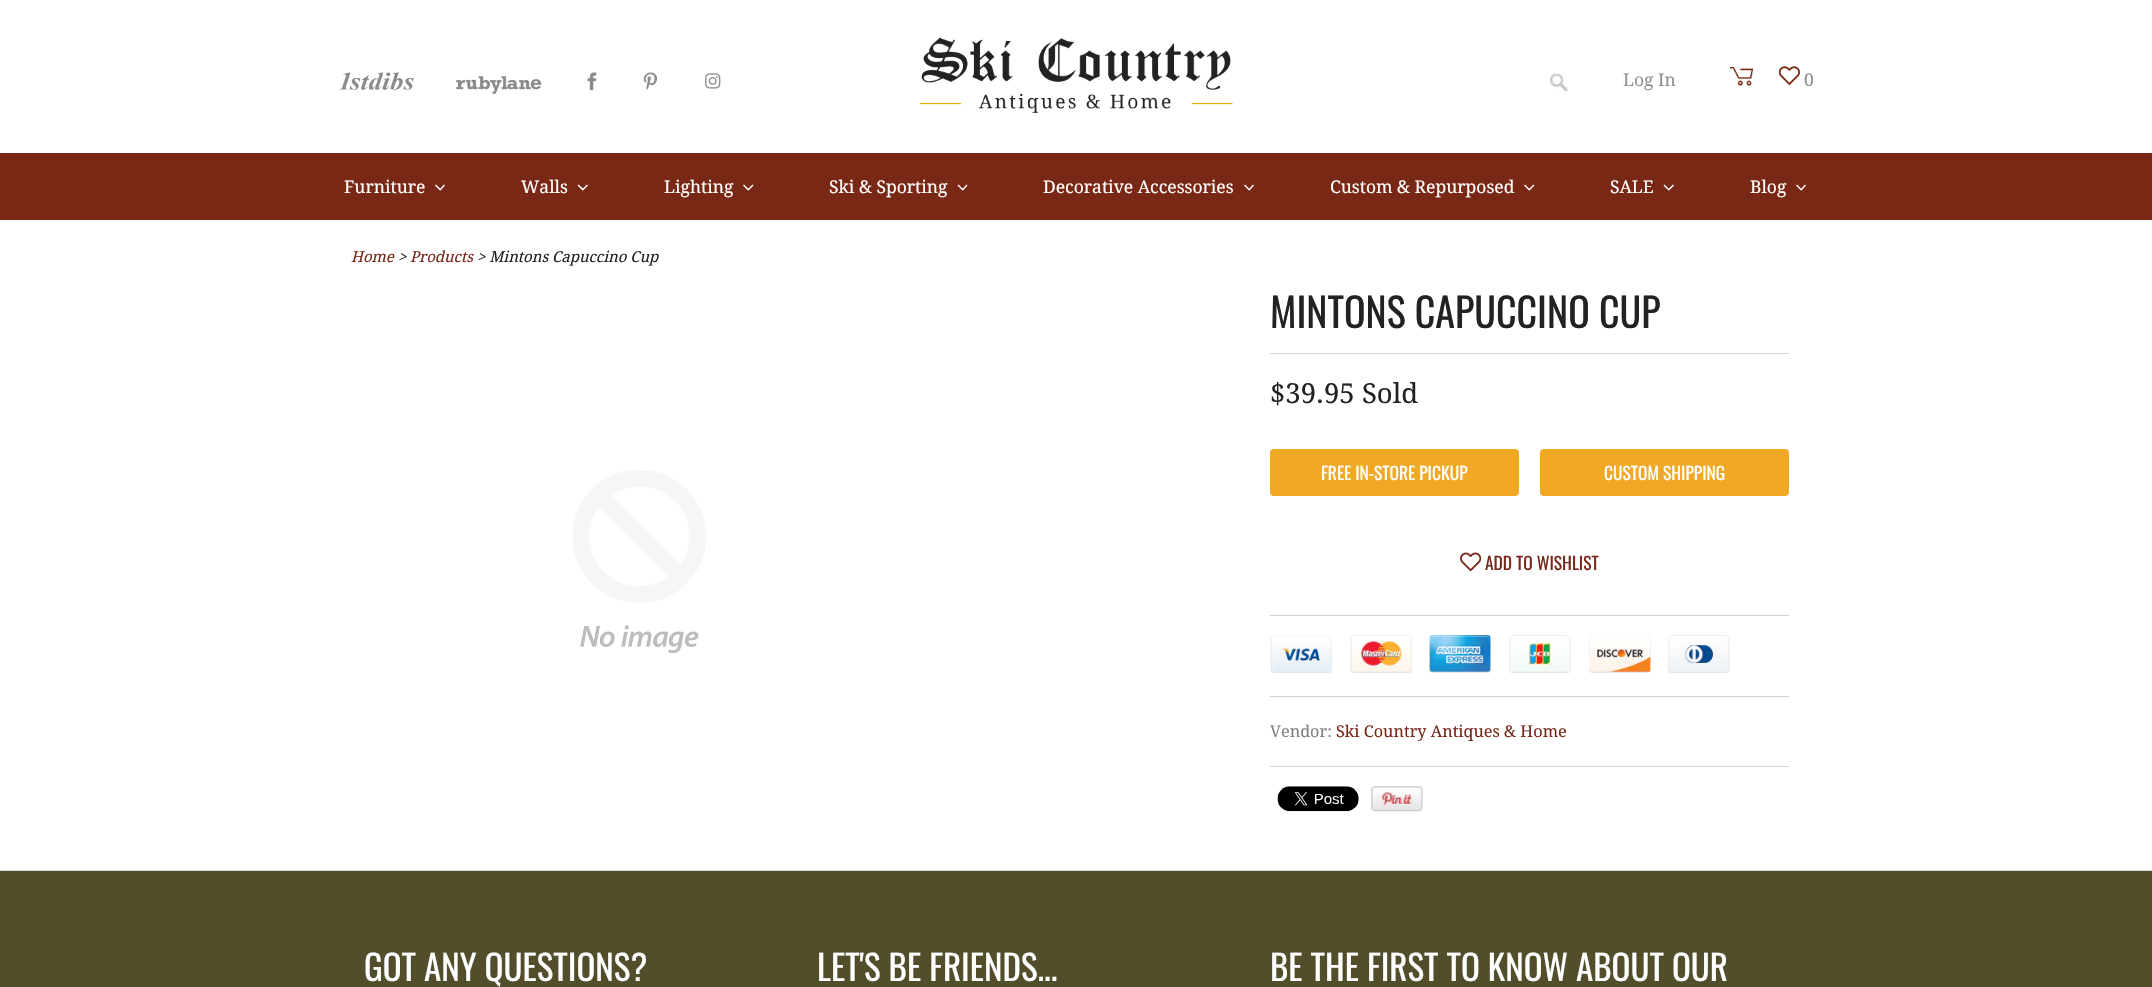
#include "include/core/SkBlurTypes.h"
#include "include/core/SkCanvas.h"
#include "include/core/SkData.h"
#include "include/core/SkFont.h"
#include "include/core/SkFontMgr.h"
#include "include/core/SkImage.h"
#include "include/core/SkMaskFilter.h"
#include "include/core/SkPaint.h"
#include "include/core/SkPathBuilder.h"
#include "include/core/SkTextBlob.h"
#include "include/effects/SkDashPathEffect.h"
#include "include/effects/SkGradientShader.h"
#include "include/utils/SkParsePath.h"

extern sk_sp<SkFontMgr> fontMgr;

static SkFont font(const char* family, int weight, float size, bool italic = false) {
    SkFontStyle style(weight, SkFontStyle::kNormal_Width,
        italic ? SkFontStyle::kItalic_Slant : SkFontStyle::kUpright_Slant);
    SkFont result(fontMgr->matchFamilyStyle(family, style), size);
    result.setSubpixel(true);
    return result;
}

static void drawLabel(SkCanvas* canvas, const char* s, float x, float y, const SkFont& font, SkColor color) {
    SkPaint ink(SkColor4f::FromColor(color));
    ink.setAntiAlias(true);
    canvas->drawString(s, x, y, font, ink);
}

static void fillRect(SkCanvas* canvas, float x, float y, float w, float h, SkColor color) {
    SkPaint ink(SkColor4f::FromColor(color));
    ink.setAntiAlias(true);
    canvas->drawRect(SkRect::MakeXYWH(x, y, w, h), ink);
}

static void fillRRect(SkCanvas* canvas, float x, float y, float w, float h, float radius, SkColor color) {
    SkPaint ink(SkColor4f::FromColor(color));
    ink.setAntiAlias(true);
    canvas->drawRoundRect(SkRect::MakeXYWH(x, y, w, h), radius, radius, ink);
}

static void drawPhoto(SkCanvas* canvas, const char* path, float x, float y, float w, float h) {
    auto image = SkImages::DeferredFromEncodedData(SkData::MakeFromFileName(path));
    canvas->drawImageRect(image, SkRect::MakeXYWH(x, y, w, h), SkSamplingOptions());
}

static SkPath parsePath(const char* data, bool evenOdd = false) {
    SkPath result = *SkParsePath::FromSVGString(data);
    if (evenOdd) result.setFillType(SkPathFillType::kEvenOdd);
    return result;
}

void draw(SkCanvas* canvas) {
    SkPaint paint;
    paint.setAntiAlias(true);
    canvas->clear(0xFFFFFFFF);
    drawPhoto(canvas, "assets/img1.png", 338, 72, 76, 18);
    drawPhoto(canvas, "assets/img2.png", 456, 76, 86, 18);
    drawPhoto(canvas, "assets/img3.png", 587, 72, 10, 18);
    drawPhoto(canvas, "assets/img4.png", 643, 72, 15, 18);
    drawPhoto(canvas, "assets/img5.png", 705, 73, 16, 16);
    drawPhoto(canvas, "assets/img6.png", 920, 37, 313, 76);
    drawPhoto(canvas, "assets/img7.png", 1550, 73, 18, 19);
    SkFont font1 = font("Droid Serif", 400, 17.5f);
    drawLabel(canvas, "Log In", 1623, 86, font1, 0xFF909090);
    drawPhoto(canvas, "assets/img8.png", 1730, 67, 23, 19);
    drawPhoto(canvas, "assets/img9.png", 1779, 66, 21, 19);
    drawLabel(canvas, "0", 1804, 86, font1, 0xFF909090);
    fillRect(canvas, 0, 153, 2152, 67, 0xFF7A2816);
    drawLabel(canvas, "Furniture", 344, 193, font1, 0xFFFFFFFF);
    paint.setColor(0xFFFFFFFF);
    canvas->drawPath(parsePath("M444 184.5L445 185.5L440.5 190.5L439.5 189.5Z"), paint);
    canvas->drawPath(parsePath("M436 184.5L441 189.5L440 190.5L435 185.5Z"), paint);
    drawLabel(canvas, "Walls", 521, 193, font1, 0xFFFFFFFF);
    canvas->drawPath(parsePath("M587 184.5L588 185.5L583 190.5L582 189.5Z"), paint);
    canvas->drawPath(parsePath("M578.5 184.5L584 189.5L582.5 190.5L577.5 185.5Z"), paint);
    drawLabel(canvas, "Lighting", 664, 193, font1, 0xFFFFFFFF);
    canvas->drawPath(parsePath("M752.5 184.5L753.5 185.5L748.5 190.5L747.5 189.5Z"), paint);
    canvas->drawPath(parsePath("M744 184.5L749 189.5L748 190.5L743 185.5Z"), paint);
    drawLabel(canvas, "Ski & Sporting", 829, 193, font1, 0xFFFFFFFF);
    canvas->drawPath(parsePath("M966.5 184.5L967.5 185.5L963 190.5L962 189.5Z"), paint);
    canvas->drawPath(parsePath("M958.5 184.5L963.5 189.5L962.5 190.5L957.5 185.5Z"), paint);
    drawLabel(canvas, "Decorative Accessories", 1043, 193, font1, 0xFFFFFFFF);
    canvas->drawPath(parsePath("M1253 184.5L1254 185.5L1249.5 190.5L1248.5 189.5Z"), paint);
    canvas->drawPath(parsePath("M1245 184.5L1250 189.5L1249 190.5L1244 185.5Z"), paint);
    drawLabel(canvas, "Custom & Repurposed", 1330, 193, font1, 0xFFFFFFFF);
    canvas->drawPath(parsePath("M1533.5 184.5L1534.5 185.5L1529.5 190.5L1528.5 189.5Z"), paint);
    canvas->drawPath(parsePath("M1525 184.5L1530 189.5L1529 190.5L1524 185.5Z"), paint);
    drawLabel(canvas, "SALE", 1610, 193, font1, 0xFFFFFFFF);
    canvas->drawPath(parsePath("M1673 184.5L1674 185.5L1669 190.5L1668 189.5Z"), paint);
    canvas->drawPath(parsePath("M1664.5 184.5L1669.5 189.5L1668.5 190.5L1663.5 185.5Z"), paint);
    drawLabel(canvas, "Blog", 1750, 193, font1, 0xFFFFFFFF);
    canvas->drawPath(parsePath("M1805 184.5L1806 185.5L1801.5 190.5L1800.5 189.5Z"), paint);
    canvas->drawPath(parsePath("M1797 184.5L1802 189.5L1801 190.5L1796 185.5Z"), paint);
    SkFont font2 = font("Droid Serif", 400, 15, true);
    drawLabel(canvas, "Home", 351, 262, font2, 0xFF78281A);
    drawLabel(canvas, ">", 398, 262, font2, 0xFF222222);
    drawLabel(canvas, "Products", 410, 262, font2, 0xFF78281A);
    drawLabel(canvas, "> Mintons Capuccino Cup", 477, 262, font2, 0xFF222222);
    drawPhoto(canvas, "assets/img10.png", 572, 470, 134, 183);
    fillRect(canvas, 1270, 353, 519, 1, 0xFFD3D3D3);
    SkFont font3 = font("Oswald", 400, 40);
    drawLabel(canvas, "MINTONS CAPUCCINO CUP", 1270, 328, font3, 0xFF222222);
    SkFont font4 = font("Droid Serif", 400, 27.5f);
    drawLabel(canvas, "$39.95 Sold", 1270, 403, font4, 0xFF222222);
    fillRRect(canvas, 1270, 449, 249, 47, 4, 0xFFF1A925);
    SkFont font5 = font("Oswald", 400, 17.5f);
    drawLabel(canvas, "FREE IN-STORE PICKUP", 1321, 480, font5, 0xFFFFFFFF);
    fillRRect(canvas, 1540, 449, 249, 47, 4, 0xFFF1A925);
    drawLabel(canvas, "CUSTOM SHIPPING", 1604, 480, font5, 0xFFFFFFFF);
    drawPhoto(canvas, "assets/img11.png", 1460, 552, 21, 20);
    drawLabel(canvas, "ADD TO WISHLIST", 1485, 570, font5, 0xFF78281A);
    fillRect(canvas, 1270, 615, 519, 1, 0xFFD3D3D3);
    drawPhoto(canvas, "assets/img12.png", 1270, 635, 62, 38);
    drawPhoto(canvas, "assets/img13.png", 1350, 635, 62, 38);
    drawPhoto(canvas, "assets/img14.png", 1429, 635, 62, 38);
    drawPhoto(canvas, "assets/img15.png", 1509, 635, 62, 38);
    drawPhoto(canvas, "assets/img16.png", 1589, 635, 62, 38);
    drawPhoto(canvas, "assets/img17.png", 1668, 635, 62, 38);
    fillRect(canvas, 1270, 696, 519, 1, 0xFFD3D3D3);
    SkFont font6 = font("Droid Serif", 400, 16.25f);
    drawLabel(canvas, "Vendor:", 1270, 737, font6, 0xFF808080);
    drawLabel(canvas, "Ski Country Antiques & Home", 1336, 737, font6, 0xFF78281A);
    fillRect(canvas, 1270, 766, 519, 1, 0xFFD3D3D3);
    drawPhoto(canvas, "assets/img18.png", 1277, 786, 82, 26);
    drawPhoto(canvas, "assets/img19.png", 1371, 786, 52, 26);
    fillRect(canvas, 0, 871, 2152, 116, 0xFF524D2B);
    fillRect(canvas, 0, 870, 2152, 1, 0xFFD3D3D3);
    SkFont font7 = font("Oswald", 400, 35);
    drawLabel(canvas, "GOT ANY QUESTIONS?", 364, 981, font7, 0xFFFFFFFF);
    drawLabel(canvas, "LET'S BE FRIENDS...", 817, 981, font7, 0xFFFFFFFF);
    drawLabel(canvas, "BE THE FIRST TO KNOW ABOUT OUR", 1270, 981, font7, 0xFFFFFFFF);
}
